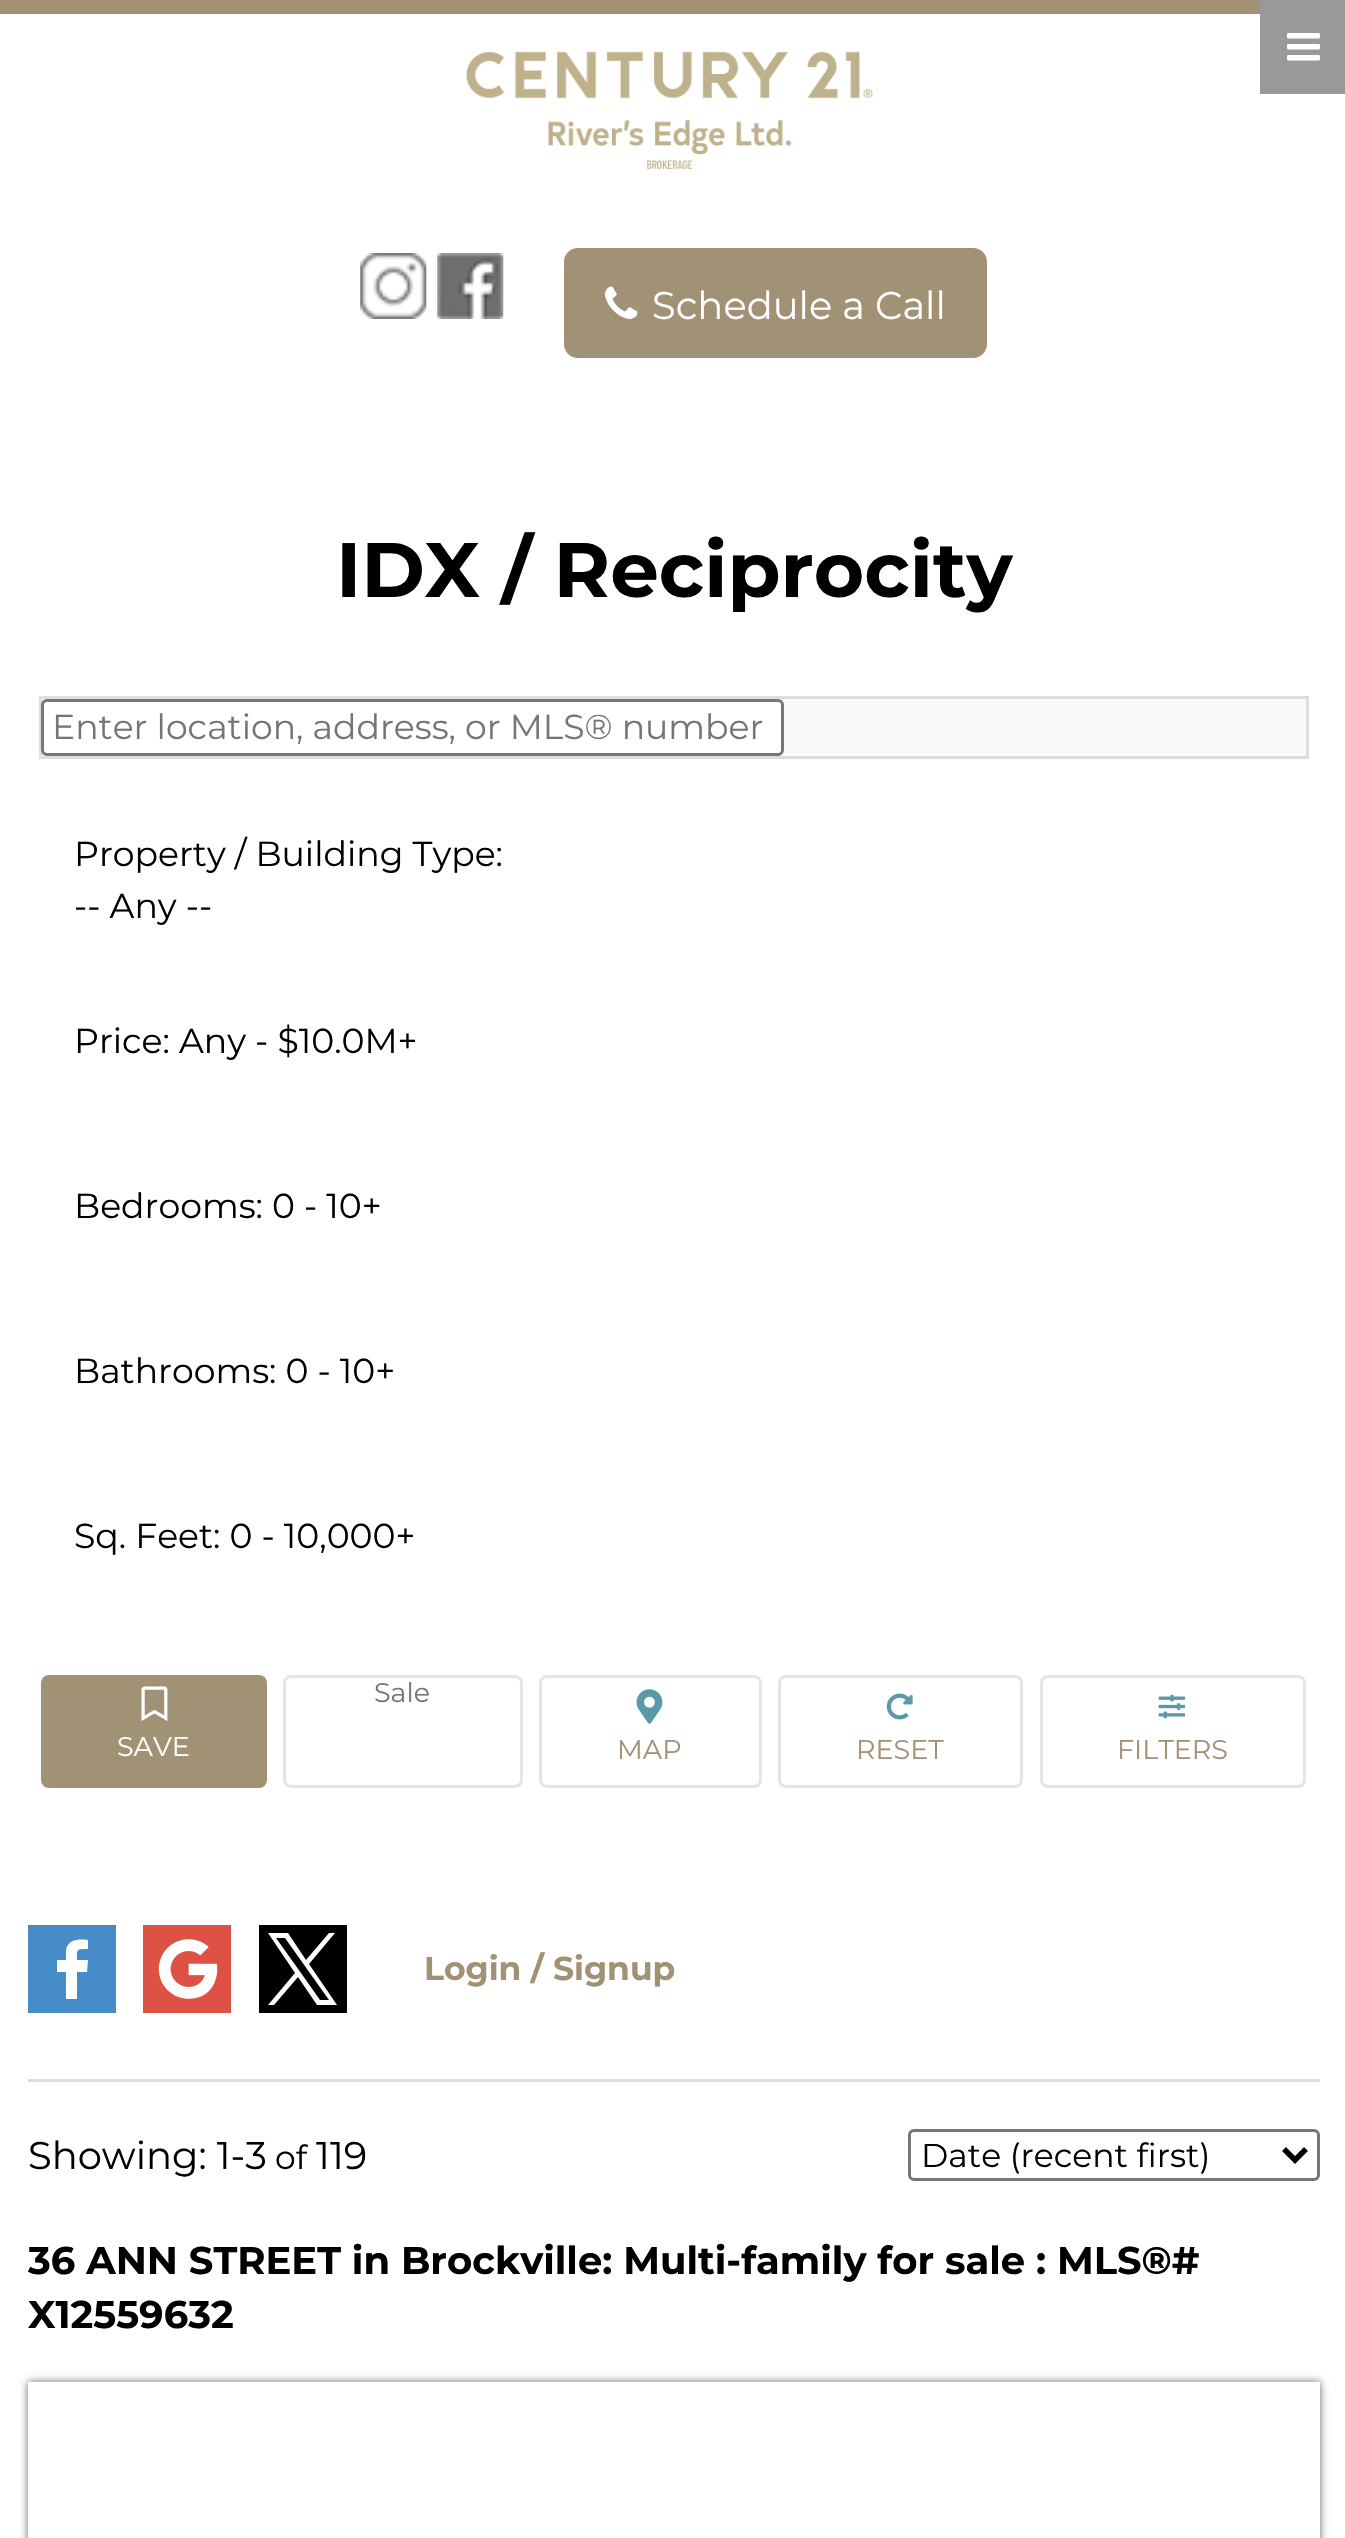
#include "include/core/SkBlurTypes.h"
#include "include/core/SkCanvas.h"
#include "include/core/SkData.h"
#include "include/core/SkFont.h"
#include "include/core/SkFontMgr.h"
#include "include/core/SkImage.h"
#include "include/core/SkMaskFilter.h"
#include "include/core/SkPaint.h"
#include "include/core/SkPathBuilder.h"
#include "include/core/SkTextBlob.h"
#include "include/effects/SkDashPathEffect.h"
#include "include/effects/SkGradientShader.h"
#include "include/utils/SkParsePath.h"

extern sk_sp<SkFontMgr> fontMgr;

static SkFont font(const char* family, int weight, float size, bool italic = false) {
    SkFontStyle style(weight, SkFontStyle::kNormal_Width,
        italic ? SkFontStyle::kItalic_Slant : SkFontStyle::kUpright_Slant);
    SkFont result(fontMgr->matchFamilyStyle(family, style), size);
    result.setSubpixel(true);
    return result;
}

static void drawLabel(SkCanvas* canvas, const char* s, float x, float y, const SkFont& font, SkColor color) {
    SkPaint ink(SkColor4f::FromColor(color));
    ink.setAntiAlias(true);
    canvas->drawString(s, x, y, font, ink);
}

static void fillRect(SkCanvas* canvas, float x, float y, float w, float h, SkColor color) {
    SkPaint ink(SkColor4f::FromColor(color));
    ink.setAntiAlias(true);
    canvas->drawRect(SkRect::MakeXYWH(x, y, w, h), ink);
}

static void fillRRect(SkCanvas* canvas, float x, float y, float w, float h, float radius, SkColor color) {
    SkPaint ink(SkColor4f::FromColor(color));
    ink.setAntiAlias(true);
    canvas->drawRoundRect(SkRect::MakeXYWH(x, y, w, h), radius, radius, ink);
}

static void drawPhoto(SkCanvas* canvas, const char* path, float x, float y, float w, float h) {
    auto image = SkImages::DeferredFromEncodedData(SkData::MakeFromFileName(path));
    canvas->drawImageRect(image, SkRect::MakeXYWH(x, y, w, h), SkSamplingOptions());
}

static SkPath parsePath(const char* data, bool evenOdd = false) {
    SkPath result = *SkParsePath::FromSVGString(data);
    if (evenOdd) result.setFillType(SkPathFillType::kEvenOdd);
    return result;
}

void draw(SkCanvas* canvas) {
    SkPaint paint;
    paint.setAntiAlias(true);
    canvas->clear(0xFFFFFFFF);
    fillRect(canvas, 0, 0, 1260, 14, 0xFFA19276);
    fillRect(canvas, 1260, 0, 85, 94, 0xFF999999);
    drawPhoto(canvas, "assets/img1.png", 1287, 33, 33, 28);
    drawPhoto(canvas, "assets/img2.png", 466, 51, 407, 118);
    drawPhoto(canvas, "assets/img3.png", 360, 253, 67, 66);
    drawPhoto(canvas, "assets/img4.png", 437, 253, 67, 66);
    fillRRect(canvas, 564, 248, 423, 110, 14, 0xFFA19276);
    drawPhoto(canvas, "assets/img5.png", 605, 286, 33, 33);
    SkFont font1 = font("Montserrat", 400, 38.5f);
    drawLabel(canvas, "Schedule a Call", 652, 319, font1, 0xFFFFFFFF);
    SkFont font2 = font("Montserrat", 700, 77);
    drawLabel(canvas, "IDX / Reciprocity", 336, 597, font2, 0xFF000000);
    paint.setColor(0xFFF9F9F9);
    canvas->drawRect(SkRect::MakeXYWH(40.5f, 697.5f, 1267, 60), paint);
    paint.setStroke(true);
    paint.setStrokeWidth(3);
    paint.setColor(0xFFDDDDDD);
    canvas->drawRect(SkRect::MakeXYWH(40.5f, 697.5f, 1267, 60), paint);
    paint.setStroke(false);
    paint.setColor(0xFFFFFFFF);
    canvas->drawRoundRect(SkRect::MakeXYWH(42.5f, 700.5f, 740, 54), 4.5f, 4.5f, paint);
    paint.setStroke(true);
    paint.setColor(0xFF767676);
    canvas->drawRoundRect(SkRect::MakeXYWH(42.5f, 700.5f, 740, 54), 4.5f, 4.5f, paint);
    SkFont font3 = font("Montserrat", 400, 34.65f);
    drawLabel(canvas, "Enter location, address, or MLS® number", 52, 739, font3, 0xFF757575);
    drawLabel(canvas, "Property / Building Type:", 74, 866, font3, 0xFF000000);
    drawLabel(canvas, "-- Any --", 74, 918, font3, 0xFF000000);
    drawLabel(canvas, "Price: Any - $10.0M+", 74, 1053, font3, 0xFF000000);
    drawLabel(canvas, "Bedrooms: 0 - 10+", 74, 1218, font3, 0xFF000000);
    drawLabel(canvas, "Bathrooms: 0 - 10+", 74, 1383, font3, 0xFF000000);
    drawLabel(canvas, "Sq. Feet: 0 - 10,000+", 74, 1548, font3, 0xFF000000);
    paint.setColor(0xFFE5E5E5);
    canvas->drawRoundRect(SkRect::MakeXYWH(284.5f, 1676.5f, 237, 110), 6.5f, 6.5f, paint);
    SkFont font4 = font("Montserrat", 400, 27);
    drawLabel(canvas, "Sale", 374, 1702, font4, 0xFF757575);
    fillRRect(canvas, 41, 1675, 226, 113, 8, 0xFFA19276);
    drawPhoto(canvas, "assets/img6.png", 141, 1686, 27, 35);
    drawLabel(canvas, "SAVE", 117, 1756, font4, 0xFFFFFFFF);
    canvas->drawRoundRect(SkRect::MakeXYWH(540.5f, 1676.5f, 220, 110), 6.5f, 6.5f, paint);
    drawPhoto(canvas, "assets/img7.png", 636, 1689, 27, 35);
    drawLabel(canvas, "MAP", 617, 1759, font4, 0xFFA19276);
    canvas->drawRoundRect(SkRect::MakeXYWH(779.5f, 1676.5f, 242, 110), 6.5f, 6.5f, paint);
    drawPhoto(canvas, "assets/img8.png", 886, 1693, 27, 27);
    drawLabel(canvas, "RESET", 856, 1759, font4, 0xFFA19276);
    canvas->drawRoundRect(SkRect::MakeXYWH(1041.5f, 1676.5f, 263, 110), 6.5f, 6.5f, paint);
    drawPhoto(canvas, "assets/img9.png", 1158, 1694, 27, 25);
    drawLabel(canvas, "FILTERS", 1117, 1759, font4, 0xFFA19276);
    fillRect(canvas, 28, 1925, 88, 88, 0xFF468CC8);
    paint.setStroke(false);
    paint.setColor(0xFFFFFFFF);
    canvas->drawPath(parsePath("M88 1960H77C77 1949 76 1949 88 1949V1940C79 1939 68 1939 66 1950V1960H57V1972H66V1999H77V1972H87Z"), paint);
    fillRect(canvas, 143, 1925, 88, 88, 0xFFDE5246);
    drawPhoto(canvas, "assets/img10.png", 158, 1939, 60, 60);
    fillRect(canvas, 259, 1925, 88, 88, 0xFF000000);
    canvas->drawPath(parsePath("M309 1964L335 1933H329L306 1960L288 1933H268L295 1973L268 2005H274L298 1977L317 2005H337ZM301 1973L276 1938H285L329 2000H320Z"), paint);
    SkFont font5 = font("Montserrat", 700, 33);
    drawLabel(canvas, "Login / Signup", 424, 1980, font5, 0xFFA19276);
    fillRect(canvas, 28, 2079, 1292, 3, 0xFFDDDDDD);
    drawLabel(canvas, "Showing: 1-3", 28, 2169, font1, 0xFF000000);
    SkFont font6 = font("Montserrat", 400, 33);
    drawLabel(canvas, "of", 275, 2169, font6, 0xFF000000);
    drawLabel(canvas, "119", 316, 2169, font1, 0xFF000000);
    paint.setStroke(true);
    paint.setColor(0xFF767676);
    canvas->drawRoundRect(SkRect::MakeXYWH(909.5f, 2130.5f, 409, 49), 4.5f, 4.5f, paint);
    paint.setStrokeWidth(5.5f);
    paint.setColor(0xFF000000);
    canvas->drawPath(parsePath("M1284 2149L1295 2160L1306 2149"), paint);
    drawLabel(canvas, "Date (recent first)", 921, 2167, font6, 0xFF000000);
    SkFont font7 = font("Montserrat", 700, 38.5f);
    drawLabel(canvas, "36 ANN STREET in Brockville: Multi-family for sale : MLS®#", 28, 2274, font7, 0xFF000000);
    drawLabel(canvas, "X12559632", 28, 2328, font7, 0xFF000000);
    canvas->save();
    canvas->clipPath(parsePath("M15 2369H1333V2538H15ZM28 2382H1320V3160H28Z", true), true);
    paint.setStroke(false);
    paint.setColor(0xFF666666);
    paint.setMaskFilter(SkMaskFilter::MakeBlur(kNormal_SkBlurStyle, 4));
    canvas->drawRect(SkRect::MakeXYWH(28, 2382, 1292, 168), paint);
    paint.setMaskFilter(nullptr);
    canvas->restore();
}
